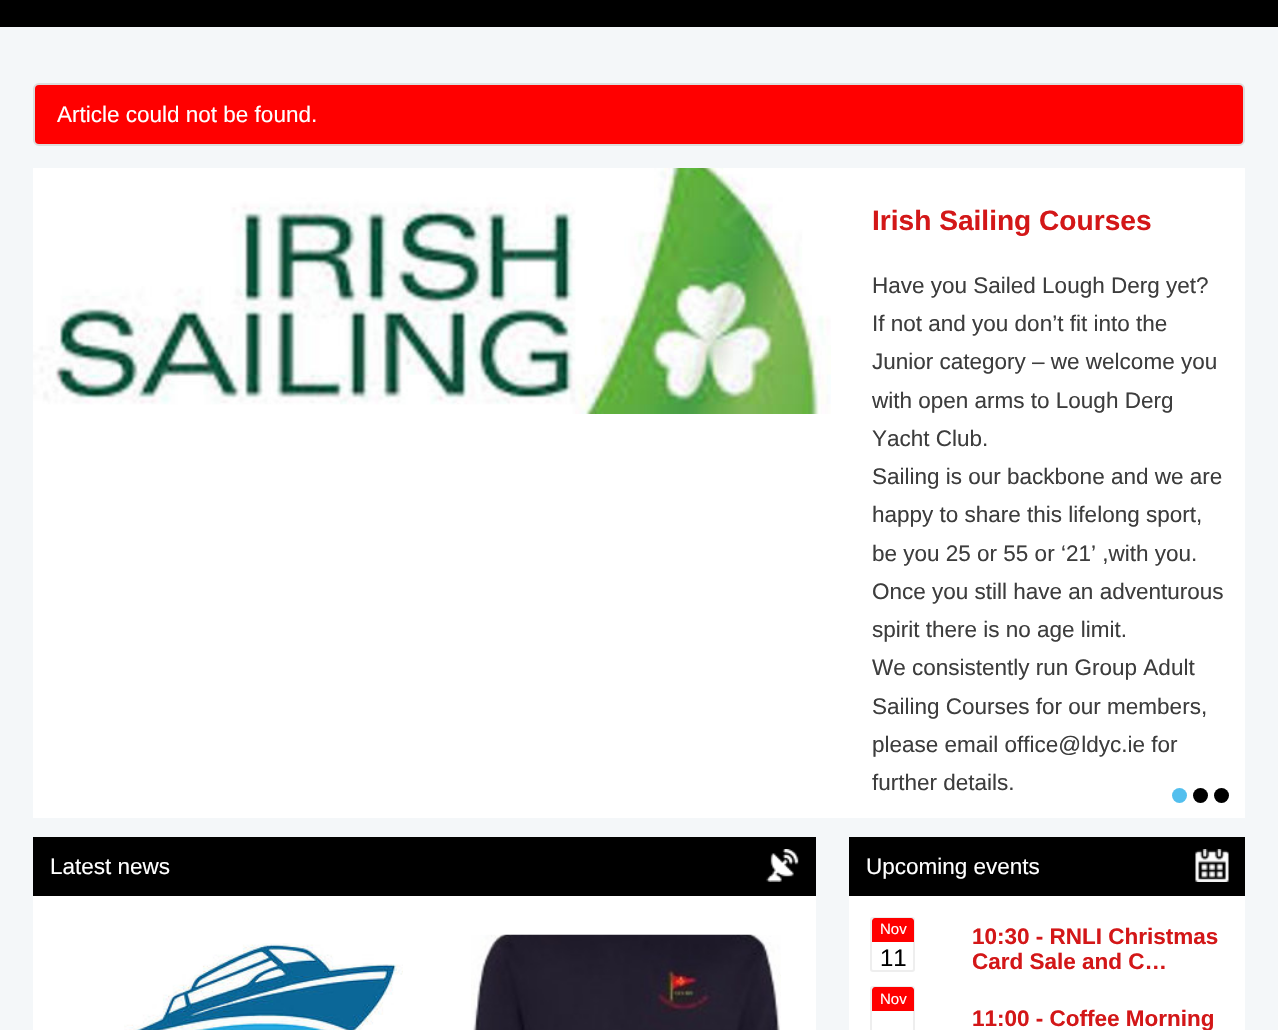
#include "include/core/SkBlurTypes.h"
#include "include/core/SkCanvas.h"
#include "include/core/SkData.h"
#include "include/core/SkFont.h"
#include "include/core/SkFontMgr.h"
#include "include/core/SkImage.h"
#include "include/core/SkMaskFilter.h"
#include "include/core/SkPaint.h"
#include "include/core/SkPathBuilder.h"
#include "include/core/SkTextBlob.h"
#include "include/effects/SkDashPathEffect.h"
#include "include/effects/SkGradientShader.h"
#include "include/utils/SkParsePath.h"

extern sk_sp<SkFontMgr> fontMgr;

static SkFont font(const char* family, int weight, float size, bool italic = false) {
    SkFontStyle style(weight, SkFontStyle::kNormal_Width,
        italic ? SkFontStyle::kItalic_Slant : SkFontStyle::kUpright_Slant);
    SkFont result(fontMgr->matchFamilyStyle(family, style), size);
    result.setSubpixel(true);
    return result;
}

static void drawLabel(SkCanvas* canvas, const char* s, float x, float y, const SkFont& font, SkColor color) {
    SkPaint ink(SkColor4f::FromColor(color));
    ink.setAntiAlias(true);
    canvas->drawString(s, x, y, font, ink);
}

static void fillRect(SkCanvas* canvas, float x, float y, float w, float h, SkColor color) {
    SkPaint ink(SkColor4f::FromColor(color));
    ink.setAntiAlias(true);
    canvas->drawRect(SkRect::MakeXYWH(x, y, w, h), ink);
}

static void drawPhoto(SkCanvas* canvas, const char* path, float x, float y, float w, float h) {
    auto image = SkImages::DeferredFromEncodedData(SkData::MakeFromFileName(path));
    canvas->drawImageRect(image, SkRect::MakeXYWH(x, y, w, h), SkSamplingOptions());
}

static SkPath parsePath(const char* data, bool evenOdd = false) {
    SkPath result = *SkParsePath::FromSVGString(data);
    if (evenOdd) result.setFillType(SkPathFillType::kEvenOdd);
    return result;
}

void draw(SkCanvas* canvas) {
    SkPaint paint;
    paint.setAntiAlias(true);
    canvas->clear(0xFF000000);
    fillRect(canvas, 0, 27, 1278, 1003, 0xFFF4F7F9);
    paint.setColor(0xFFFF0000);
    canvas->drawRoundRect(SkRect::MakeXYWH(34, 84, 1210, 61), 5, 5, paint);
    paint.setStroke(true);
    paint.setStrokeWidth(2);
    paint.setColor(0xFFDDDDDD);
    canvas->drawRoundRect(SkRect::MakeXYWH(34, 84, 1210, 61), 5, 5, paint);
    SkFont font1 = font("Liberation Sans", 400, 22.5f);
    drawLabel(canvas, "Article could not be found.", 57, 122, font1, 0xFFFFFFFF);
    fillRect(canvas, 33, 168, 1212, 650, 0xFFFFFFFF);
    drawPhoto(canvas, "assets/img1.png", 33, 168, 798, 246);
    SkFont font2 = font("Liberation Sans", 700, 28.1f);
    drawLabel(canvas, "Irish Sailing Courses", 872, 230, font2, 0xFFD31718);
    drawLabel(canvas, "Have you Sailed Lough Derg yet?", 872, 293, font1, 0xFF3D3D3D);
    drawLabel(canvas, "If not and you don’t fit into the", 872, 331, font1, 0xFF3D3D3D);
    drawLabel(canvas, "Junior category – we welcome you", 872, 369, font1, 0xFF3D3D3D);
    drawLabel(canvas, "with open arms to Lough Derg", 872, 408, font1, 0xFF3D3D3D);
    drawLabel(canvas, "Yacht Club.", 872, 446, font1, 0xFF3D3D3D);
    drawLabel(canvas, "Sailing is our backbone and we are", 872, 484, font1, 0xFF3D3D3D);
    drawLabel(canvas, "happy to share this lifelong sport,", 872, 522, font1, 0xFF3D3D3D);
    drawLabel(canvas, "be you 25 or 55 or ‘21’ ,with you.", 872, 561, font1, 0xFF3D3D3D);
    drawLabel(canvas, "Once you still have an adventurous", 872, 599, font1, 0xFF3D3D3D);
    drawLabel(canvas, "spirit there is no age limit.", 872, 637, font1, 0xFF3D3D3D);
    drawLabel(canvas, "We consistently run Group Adult", 872, 675, font1, 0xFF3D3D3D);
    drawLabel(canvas, "Sailing Courses for our members,", 872, 714, font1, 0xFF3D3D3D);
    drawLabel(canvas, "please email office@ldyc.ie for", 872, 752, font1, 0xFF3D3D3D);
    drawLabel(canvas, "further details.", 872, 790, font1, 0xFF3D3D3D);
    paint.setStroke(false);
    paint.setColor(0xFF53BFEE);
    canvas->drawCircle(1179.5f, 795.5f, 7.5f, paint);
    paint.setColor(0xFF000000);
    canvas->drawCircle(1200.5f, 795.5f, 7.5f, paint);
    canvas->drawCircle(1221.5f, 795.5f, 7.5f, paint);
    fillRect(canvas, 33, 896, 783, 134, 0xFFFFFFFF);
    fillRect(canvas, 33, 837, 783, 59, 0xFF000000);
    drawPhoto(canvas, "assets/img2.png", 766, 849, 33, 33);
    drawLabel(canvas, "Latest news", 50, 874, font1, 0xFFFFFFFF);
    drawPhoto(canvas, "assets/img3.png", 124, 943, 279, 87);
    drawPhoto(canvas, "assets/img4.png", 471, 934, 310, 96);
    fillRect(canvas, 849, 896, 396, 134, 0xFFFFFFFF);
    fillRect(canvas, 849, 837, 396, 59, 0xFF000000);
    drawPhoto(canvas, "assets/img5.png", 1195, 849, 34, 33);
    drawLabel(canvas, "Upcoming events", 866, 874, font1, 0xFFFFFFFF);
    paint.setStroke(true);
    paint.setColor(0xFFEEEEEE);
    canvas->drawRoundRect(SkRect::MakeXYWH(871, 918, 43, 53), 2, 2, paint);
    paint.setStroke(false);
    paint.setColor(0xFFFF0000);
    canvas->drawPath(parsePath("M875 918H911C912.5 918 914 919.5 914 921V942H872V921C872 919.5 873.5 918 875 918Z"), paint);
    SkFont font3 = font("Liberation Sans", 400, 15);
    drawLabel(canvas, "Nov", 880, 934, font3, 0xFFFFFFFF);
    SkFont font4 = font("Liberation Sans", 400, 24);
    drawLabel(canvas, "11", 880, 966, font4, 0xFF000000);
    SkFont font5 = font("Liberation Sans", 700, 22.5f);
    drawLabel(canvas, "10:30 - RNLI Christmas", 972, 944, font5, 0xFFD31718);
    drawLabel(canvas, "Card Sale and C…", 972, 969, font5, 0xFFD31718);
    paint.setStroke(true);
    paint.setColor(0xFFEEEEEE);
    canvas->drawRoundRect(SkRect::MakeXYWH(871, 987, 43, 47), 2, 2, paint);
    paint.setStroke(false);
    paint.setColor(0xFFFF0000);
    canvas->drawPath(parsePath("M875 987H911C912.5 987 914 988.5 914 990V1011H872V990C872 988.5 873.5 987 875 987Z"), paint);
    drawLabel(canvas, "Nov", 880, 1004, font3, 0xFFFFFFFF);
    drawLabel(canvas, "11:00 - Coffee Morning", 972, 1026, font5, 0xFFD31718);
}
